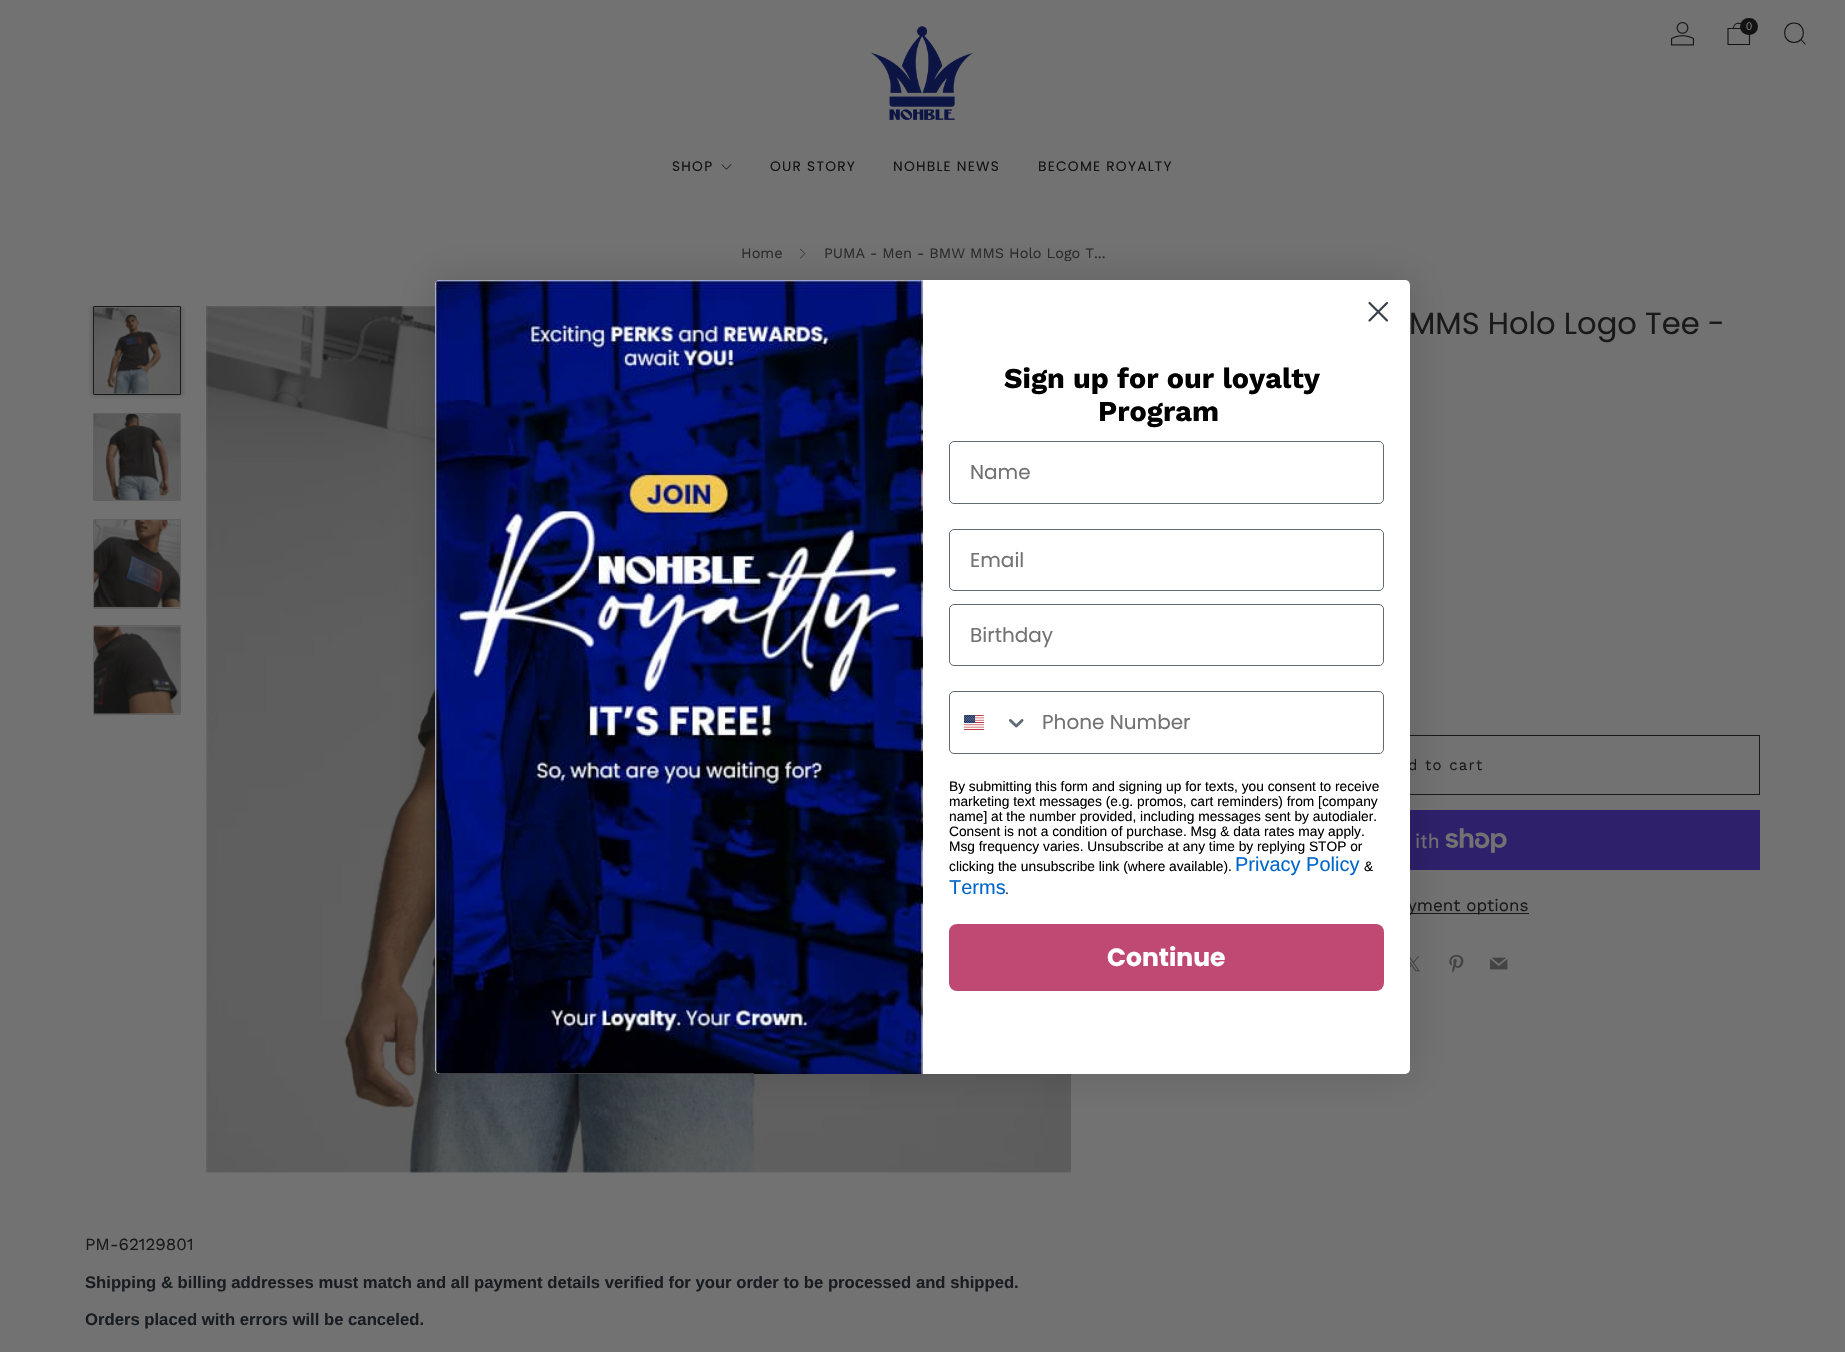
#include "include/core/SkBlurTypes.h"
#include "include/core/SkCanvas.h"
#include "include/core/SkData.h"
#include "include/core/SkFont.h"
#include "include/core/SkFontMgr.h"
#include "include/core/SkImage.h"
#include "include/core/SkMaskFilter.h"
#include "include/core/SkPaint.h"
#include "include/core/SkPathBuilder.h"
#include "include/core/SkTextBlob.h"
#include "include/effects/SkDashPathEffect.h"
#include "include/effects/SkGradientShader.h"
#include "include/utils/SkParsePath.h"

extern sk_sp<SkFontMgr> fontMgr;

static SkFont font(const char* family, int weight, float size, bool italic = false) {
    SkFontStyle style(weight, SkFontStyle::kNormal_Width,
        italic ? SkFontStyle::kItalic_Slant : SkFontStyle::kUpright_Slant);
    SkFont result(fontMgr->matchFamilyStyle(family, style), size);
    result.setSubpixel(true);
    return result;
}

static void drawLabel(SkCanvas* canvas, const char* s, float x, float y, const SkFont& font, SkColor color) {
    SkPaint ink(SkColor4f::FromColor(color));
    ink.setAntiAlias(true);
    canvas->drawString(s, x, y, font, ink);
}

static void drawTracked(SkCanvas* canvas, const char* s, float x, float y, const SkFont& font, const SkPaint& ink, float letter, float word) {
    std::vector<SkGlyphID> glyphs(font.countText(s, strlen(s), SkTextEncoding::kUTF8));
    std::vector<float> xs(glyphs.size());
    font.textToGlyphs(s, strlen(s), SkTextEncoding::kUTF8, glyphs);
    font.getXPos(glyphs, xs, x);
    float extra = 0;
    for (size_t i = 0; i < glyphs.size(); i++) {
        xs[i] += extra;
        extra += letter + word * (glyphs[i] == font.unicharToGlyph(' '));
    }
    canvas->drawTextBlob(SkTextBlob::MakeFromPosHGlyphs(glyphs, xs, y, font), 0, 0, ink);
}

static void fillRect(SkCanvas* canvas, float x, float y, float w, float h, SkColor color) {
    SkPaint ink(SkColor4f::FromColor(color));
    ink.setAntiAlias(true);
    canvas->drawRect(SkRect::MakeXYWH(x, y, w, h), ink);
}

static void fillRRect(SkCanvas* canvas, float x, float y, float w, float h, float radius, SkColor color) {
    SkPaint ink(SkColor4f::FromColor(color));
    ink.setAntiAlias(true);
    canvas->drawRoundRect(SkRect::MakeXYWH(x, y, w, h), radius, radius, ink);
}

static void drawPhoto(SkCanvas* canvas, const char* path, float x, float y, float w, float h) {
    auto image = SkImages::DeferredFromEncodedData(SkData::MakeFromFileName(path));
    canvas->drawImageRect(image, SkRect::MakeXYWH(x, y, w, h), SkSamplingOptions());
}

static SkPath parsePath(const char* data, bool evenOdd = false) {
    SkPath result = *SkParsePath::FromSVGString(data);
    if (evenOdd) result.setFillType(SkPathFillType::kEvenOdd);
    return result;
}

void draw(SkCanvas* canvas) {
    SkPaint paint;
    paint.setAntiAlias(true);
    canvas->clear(0xFF727272);
    drawPhoto(canvas, "assets/img1.png", 1671, 22, 23, 24);
    paint.setStroke(true);
    paint.setStrokeWidth(1.1f);
    paint.setColor(0xFF131313);
    canvas->drawPath(parsePath("M1728 28.5H1749.5V44.5H1728ZM1744 28.5C1744 21.5 1733.5 21.5 1733.5 28.5"), paint);
    fillRRect(canvas, 1740, 18, 18, 17, 8.5f, 0xFF131313);
    SkFont font1 = font("Liberation Sans", 400, 11);
    drawLabel(canvas, "0", 1746, 30, font1, 0xFF727272);
    canvas->drawPath(parsePath("M1794 42.5C1806.5 42.5 1806.5 23 1794 23C1781.5 23 1781.5 42.5 1794 42.5ZM1801 39.5L1805.5 44.5"), paint);
    SkFont font2 = font("Poppins", 400, 13.75f);
    paint.setStroke(false);
    drawTracked(canvas, "SHOP", 672, 171, font2, paint, 1.25f, 0);
    drawPhoto(canvas, "assets/img2.png", 721, 164, 11, 6);
    drawTracked(canvas, "OUR STORY", 770, 171, font2, paint, 1.25f, 0);
    drawTracked(canvas, "NOHBLE NEWS", 893, 171, font2, paint, 1.25f, 0);
    drawTracked(canvas, "BECOME ROYALTY", 1038, 171, font2, paint, 1.25f, 0);
    drawPhoto(canvas, "assets/img3.png", 871, 26, 102, 94);
    SkFont font3 = font("Work Sans", 400, 14.5f);
    drawLabel(canvas, "Home", 741, 258, font3, 0xFF2B2B2B);
    drawPhoto(canvas, "assets/img4.png", 800, 248, 6, 11);
    drawLabel(canvas, "PUMA - Men - BMW MMS Holo Logo T...", 824, 258, font3, 0xFF2B2B2B);
    canvas->save();
    canvas->clipRect(SkRect::MakeXYWH(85, 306, 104, 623));
    paint.setColor(0x33191919);
    paint.setMaskFilter(SkMaskFilter::MakeBlur(kNormal_SkBlurStyle, 2));
    canvas->drawRoundRect(SkRect::MakeXYWH(91, 305, 92, 91), 2.5f, 2.5f, paint);
    paint.setMaskFilter(nullptr);
    canvas->restore();
    paint.setStroke(true);
    paint.setStrokeWidth(1);
    paint.setColor(0xFF191919);
    canvas->drawRoundRect(SkRect::MakeXYWH(93.5f, 306.5f, 87, 88), 0.5f, 0.5f, paint);
    drawPhoto(canvas, "assets/img5.png", 93, 307, 87, 87);
    paint.setColor(0xFF606060);
    canvas->drawRoundRect(SkRect::MakeXYWH(93.5f, 413.5f, 87, 87), 0.5f, 0.5f, paint);
    drawPhoto(canvas, "assets/img6.png", 94, 413, 86, 87);
    canvas->drawRoundRect(SkRect::MakeXYWH(93.5f, 519.5f, 87, 89), 0.5f, 0.5f, paint);
    drawPhoto(canvas, "assets/img7.png", 93, 520, 87, 88);
    canvas->drawRoundRect(SkRect::MakeXYWH(93.5f, 625.5f, 87, 89), 0.5f, 0.5f, paint);
    drawPhoto(canvas, "assets/img8.png", 93, 626, 87, 88);
    drawPhoto(canvas, "assets/img9.png", 206, 306, 865, 867);
    SkFont font4 = font("Poppins", 400, 30.6f);
    drawLabel(canvas, "MMS Holo Logo Tee -", 1409, 334, font4, 0xFF191919);
    paint.setColor(0xFF191919);
    canvas->drawRect(SkRect::MakeXYWH(1109.5f, 735.5f, 650, 59), paint);
    SkFont font5 = font("Work Sans", 400, 15);
    paint.setStroke(false);
    drawTracked(canvas, "d to cart", 1408, 770, font5, paint, 1.25f, 0);
    fillRect(canvas, 1410, 810, 350, 60, 0xFF2E206A);
    SkFont font6 = font("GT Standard", 400, 20);
    drawLabel(canvas, "ith", 1415, 848, font6, 0xFF727272);
    drawPhoto(canvas, "assets/img10.png", 1445, 828, 62, 25);
    fillRect(canvas, 1410, 913, 119, 1, 0xFF191919);
    SkFont font7 = font("Work Sans", 400, 17);
    drawLabel(canvas, "yment options", 1408, 911, font7, 0xFF191919);
    drawPhoto(canvas, "assets/img11.png", 1410, 956, 10, 16);
    drawPhoto(canvas, "assets/img12.png", 1449, 954, 15, 19);
    drawPhoto(canvas, "assets/img13.png", 1490, 957, 18, 13);
    drawLabel(canvas, "PM-62129801", 85, 1250, font7, 0xFF191919);
    SkFont font8 = font("Liberation Sans", 700, 16.67f);
    drawLabel(canvas, "Shipping & billing addresses must match and all payment details verified for your order to be processed and shipped.", 85, 1288, font8, 0xFF191D22);
    drawLabel(canvas, "Orders placed with errors will be canceled.", 85, 1325, font8, 0xFF191D22);
    paint.setColor(0x26000000);
    paint.setMaskFilter(SkMaskFilter::MakeBlur(kNormal_SkBlurStyle, 19));
    canvas->drawRoundRect(SkRect::MakeXYWH(435, 280, 975, 794), 5, 5, paint);
    paint.setMaskFilter(nullptr);
    fillRRect(canvas, 435, 280, 975, 794, 5, 0xFFFFFFFF);
    paint.setStroke(true);
    paint.setStrokeWidth(2.2f);
    paint.setStrokeCap(SkPaint::kRound_Cap);
    paint.setStrokeJoin(SkPaint::kRound_Join);
    paint.setColor(0xFF373F47);
    canvas->drawPath(parsePath("M1369.5 303L1387 320.5M1369.5 320.5L1387 303Z"), paint);
    drawPhoto(canvas, "assets/img14.png", 435, 280, 488, 794);
    SkFont font9 = font("Work Sans", 700, 28.75f);
    drawLabel(canvas, "Sign up for our loyalty", 1004, 388, font9, 0xFF000000);
    drawLabel(canvas, "Program", 1098, 421, font9, 0xFF000000);
    paint.setStrokeWidth(1);
    paint.setStrokeCap(SkPaint::kButt_Cap);
    paint.setStrokeJoin(SkPaint::kMiter_Join);
    paint.setColor(0xFF606A72);
    canvas->drawRoundRect(SkRect::MakeXYWH(949.5f, 441.5f, 434, 62), 4.5f, 4.5f, paint);
    SkFont font10 = font("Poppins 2", 400, 20);
    drawLabel(canvas, "Name", 970, 479, font10, 0xFF727272);
    canvas->drawRoundRect(SkRect::MakeXYWH(949.5f, 529.5f, 434, 61), 4.5f, 4.5f, paint);
    drawLabel(canvas, "Email", 970, 567, font10, 0xFF727272);
    canvas->drawRoundRect(SkRect::MakeXYWH(949.5f, 604.5f, 434, 61), 4.5f, 4.5f, paint);
    drawLabel(canvas, "Birthday", 970, 642, font10, 0xFF727272);
    canvas->drawRoundRect(SkRect::MakeXYWH(949.5f, 691.5f, 434, 62), 4.5f, 4.5f, paint);
    drawPhoto(canvas, "assets/img15.png", 964, 715, 20, 15);
    drawPhoto(canvas, "assets/img16.png", 1009, 719, 15, 9);
    drawLabel(canvas, "Phone Number", 1042, 729, font10, 0xFF727272);
    SkFont font11 = font("Liberation Sans", 400, 13.75f);
    drawLabel(canvas, "By submitting this form and signing up for texts, you consent to receive", 949, 791, font11, 0xFF000000);
    drawLabel(canvas, "marketing text messages (e.g. promos, cart reminders) from [company", 949, 806, font11, 0xFF000000);
    drawLabel(canvas, "name] at the number provided, including messages sent by autodialer.", 949, 821, font11, 0xFF000000);
    drawLabel(canvas, "Consent is not a condition of purchase. Msg & data rates may apply.", 949, 836, font11, 0xFF000000);
    drawLabel(canvas, "Msg frequency varies. Unsubscribe at any time by replying STOP or", 949, 851, font11, 0xFF000000);
    drawLabel(canvas, "clicking the unsubscribe link (where available).", 949, 871, font11, 0xFF000000);
    SkFont font12 = font("Liberation Sans", 400, 20);
    drawLabel(canvas, "Privacy Policy", 1235, 871, font12, 0xFF0066CC);
    drawLabel(canvas, "&", 1364, 871, font11, 0xFF000000);
    drawLabel(canvas, "Terms", 949, 894, font12, 0xFF0066CC);
    drawLabel(canvas, ".", 1005, 894, font11, 0xFF000000);
    fillRRect(canvas, 949, 924, 435, 67, 8, 0xFFBF4973);
    SkFont font13 = font("Poppins", 700, 25);
    drawLabel(canvas, "Continue", 1107, 966, font13, 0xFFFFFFFF);
}
